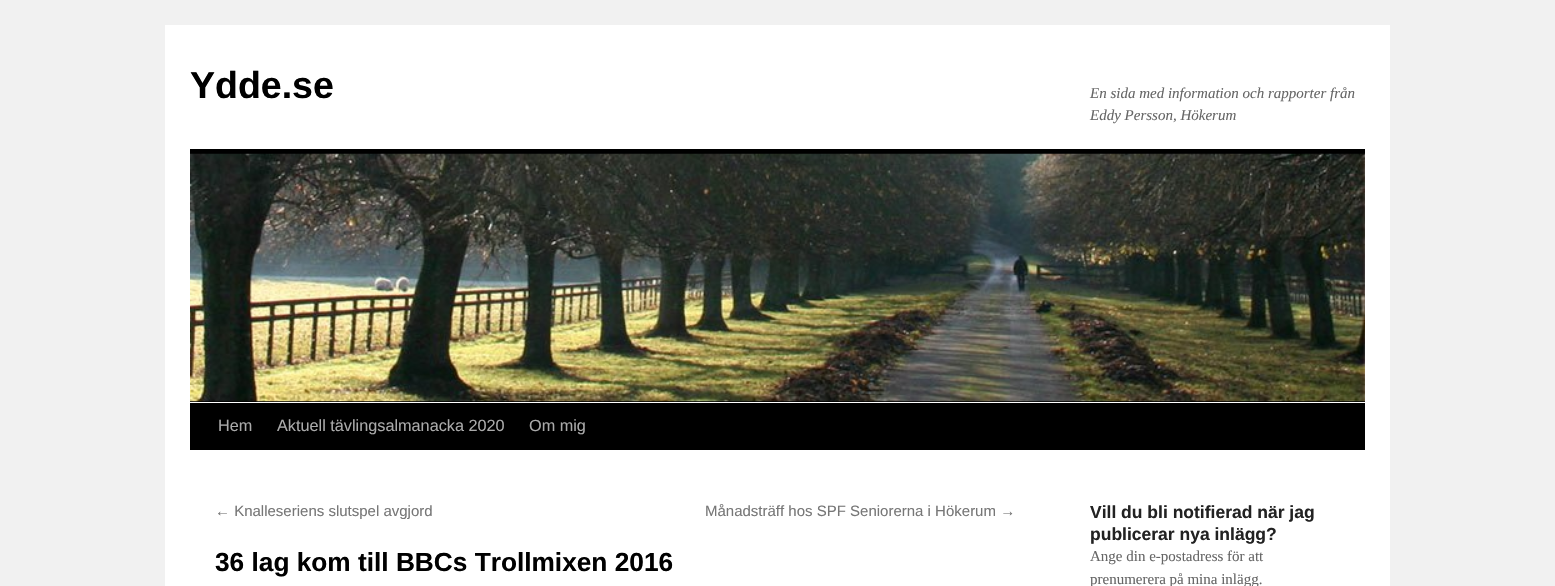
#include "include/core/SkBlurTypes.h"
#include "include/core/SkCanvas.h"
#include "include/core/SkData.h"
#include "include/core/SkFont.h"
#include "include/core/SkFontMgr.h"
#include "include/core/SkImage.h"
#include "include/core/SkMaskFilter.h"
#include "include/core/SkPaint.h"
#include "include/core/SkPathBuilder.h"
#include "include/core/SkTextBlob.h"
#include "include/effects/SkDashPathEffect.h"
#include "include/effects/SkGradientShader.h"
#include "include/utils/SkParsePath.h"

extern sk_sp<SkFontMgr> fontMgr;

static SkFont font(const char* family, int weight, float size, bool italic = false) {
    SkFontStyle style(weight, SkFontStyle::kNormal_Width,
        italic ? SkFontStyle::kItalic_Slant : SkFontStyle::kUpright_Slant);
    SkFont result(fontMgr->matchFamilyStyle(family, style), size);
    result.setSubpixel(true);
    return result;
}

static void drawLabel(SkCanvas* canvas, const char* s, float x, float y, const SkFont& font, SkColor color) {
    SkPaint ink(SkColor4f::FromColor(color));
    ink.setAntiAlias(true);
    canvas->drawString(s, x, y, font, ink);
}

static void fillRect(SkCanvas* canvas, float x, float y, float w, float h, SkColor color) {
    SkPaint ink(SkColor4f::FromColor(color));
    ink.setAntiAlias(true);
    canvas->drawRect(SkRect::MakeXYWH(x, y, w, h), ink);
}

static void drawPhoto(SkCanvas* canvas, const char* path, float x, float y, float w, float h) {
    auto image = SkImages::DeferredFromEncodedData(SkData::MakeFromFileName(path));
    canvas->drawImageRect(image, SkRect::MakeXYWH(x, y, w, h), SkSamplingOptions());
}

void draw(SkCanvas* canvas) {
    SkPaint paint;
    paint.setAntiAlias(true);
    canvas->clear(0xFFF1F1F1);
    fillRect(canvas, 165, 25, 1225, 561, 0xFFFFFFFF);
    SkFont font1 = font("Liberation Sans", 700, 37.5f);
    drawLabel(canvas, "Ydde.se", 190, 98, font1, 0xFF000000);
    SkFont font2 = font("Liberation Serif", 400, 15, true);
    drawLabel(canvas, "En sida med information och rapporter från", 1090, 98, font2, 0xFF666666);
    drawLabel(canvas, "Eddy Persson, Hökerum", 1090, 120, font2, 0xFF666666);
    fillRect(canvas, 190, 149, 1175, 5, 0xFF000000);
    fillRect(canvas, 190, 401, 1175, 1, 0xFF000000);
    drawPhoto(canvas, "assets/img1.png", 190, 153, 1175, 249);
    fillRect(canvas, 190, 403, 1175, 47, 0xFF000000);
    SkFont font3 = font("Liberation Sans", 400, 16.25f);
    drawLabel(canvas, "Hem", 218, 431, font3, 0xFFAAAAAA);
    drawLabel(canvas, "Aktuell tävlingsalmanacka 2020", 277, 431, font3, 0xFFAAAAAA);
    drawLabel(canvas, "Om mig", 529, 431, font3, 0xFFAAAAAA);
    SkFont font4 = font("Liberation Sans", 400, 15);
    drawLabel(canvas, "← Knalleseriens slutspel avgjord", 215, 516, font4, 0xFF777777);
    drawLabel(canvas, "Månadsträff hos SPF Seniorerna i Hökerum →", 705, 516, font4, 0xFF777777);
    SkFont font5 = font("Liberation Sans", 700, 26.25f);
    drawLabel(canvas, "36 lag kom till BBCs Trollmixen 2016", 215, 571, font5, 0xFF000000);
    SkFont font6 = font("Liberation Sans", 700, 17.5f);
    drawLabel(canvas, "Vill du bli notifierad när jag", 1090, 518, font6, 0xFF222222);
    drawLabel(canvas, "publicerar nya inlägg?", 1090, 540, font6, 0xFF222222);
    SkFont font7 = font("Liberation Serif", 400, 15);
    drawLabel(canvas, "Ange din e-postadress för att", 1090, 561, font7, 0xFF666666);
    drawLabel(canvas, "prenumerera på mina inlägg.", 1090, 584, font7, 0xFF666666);
}
